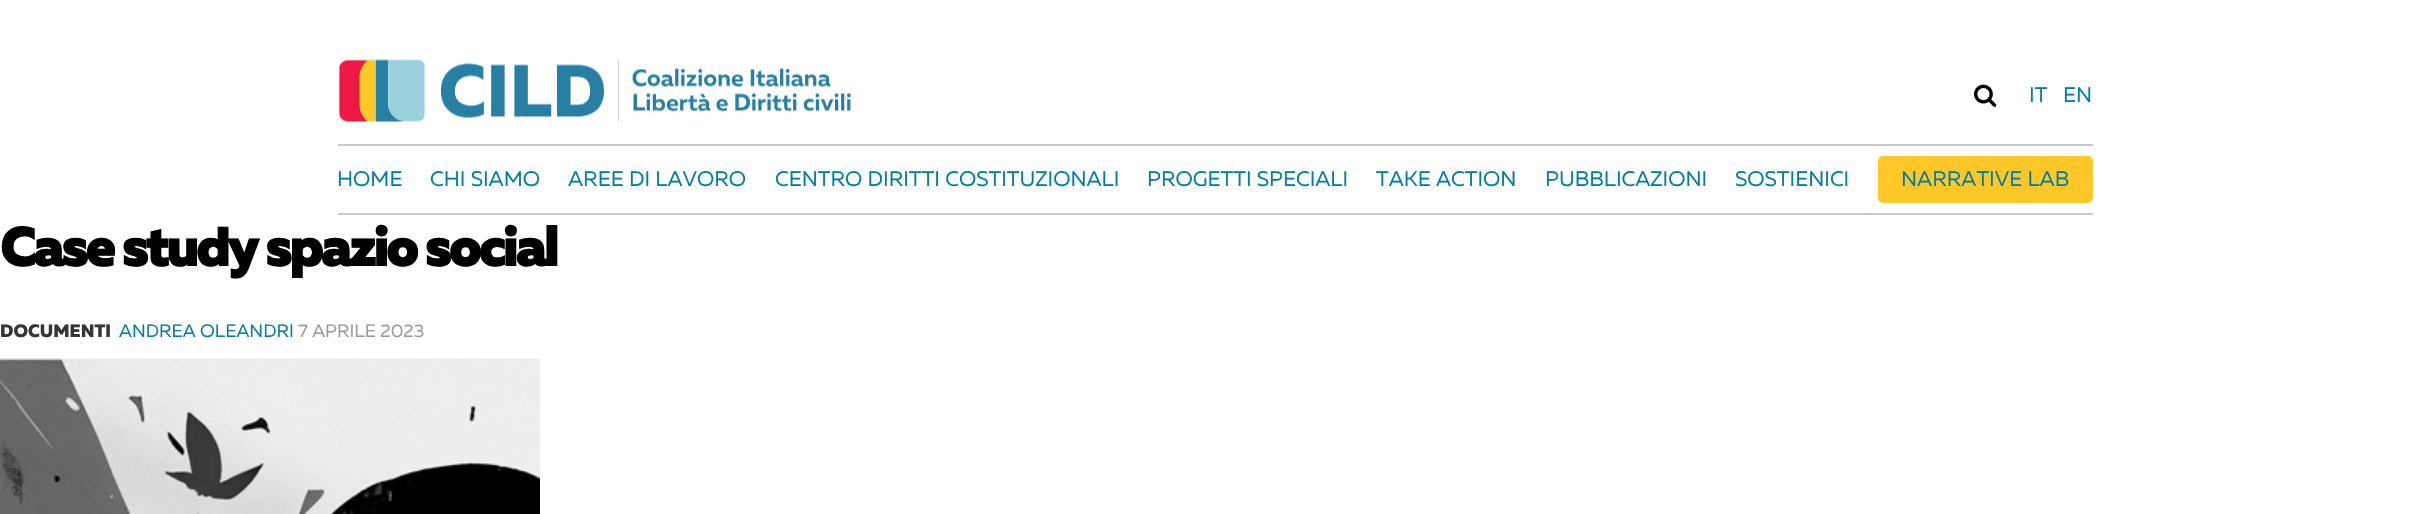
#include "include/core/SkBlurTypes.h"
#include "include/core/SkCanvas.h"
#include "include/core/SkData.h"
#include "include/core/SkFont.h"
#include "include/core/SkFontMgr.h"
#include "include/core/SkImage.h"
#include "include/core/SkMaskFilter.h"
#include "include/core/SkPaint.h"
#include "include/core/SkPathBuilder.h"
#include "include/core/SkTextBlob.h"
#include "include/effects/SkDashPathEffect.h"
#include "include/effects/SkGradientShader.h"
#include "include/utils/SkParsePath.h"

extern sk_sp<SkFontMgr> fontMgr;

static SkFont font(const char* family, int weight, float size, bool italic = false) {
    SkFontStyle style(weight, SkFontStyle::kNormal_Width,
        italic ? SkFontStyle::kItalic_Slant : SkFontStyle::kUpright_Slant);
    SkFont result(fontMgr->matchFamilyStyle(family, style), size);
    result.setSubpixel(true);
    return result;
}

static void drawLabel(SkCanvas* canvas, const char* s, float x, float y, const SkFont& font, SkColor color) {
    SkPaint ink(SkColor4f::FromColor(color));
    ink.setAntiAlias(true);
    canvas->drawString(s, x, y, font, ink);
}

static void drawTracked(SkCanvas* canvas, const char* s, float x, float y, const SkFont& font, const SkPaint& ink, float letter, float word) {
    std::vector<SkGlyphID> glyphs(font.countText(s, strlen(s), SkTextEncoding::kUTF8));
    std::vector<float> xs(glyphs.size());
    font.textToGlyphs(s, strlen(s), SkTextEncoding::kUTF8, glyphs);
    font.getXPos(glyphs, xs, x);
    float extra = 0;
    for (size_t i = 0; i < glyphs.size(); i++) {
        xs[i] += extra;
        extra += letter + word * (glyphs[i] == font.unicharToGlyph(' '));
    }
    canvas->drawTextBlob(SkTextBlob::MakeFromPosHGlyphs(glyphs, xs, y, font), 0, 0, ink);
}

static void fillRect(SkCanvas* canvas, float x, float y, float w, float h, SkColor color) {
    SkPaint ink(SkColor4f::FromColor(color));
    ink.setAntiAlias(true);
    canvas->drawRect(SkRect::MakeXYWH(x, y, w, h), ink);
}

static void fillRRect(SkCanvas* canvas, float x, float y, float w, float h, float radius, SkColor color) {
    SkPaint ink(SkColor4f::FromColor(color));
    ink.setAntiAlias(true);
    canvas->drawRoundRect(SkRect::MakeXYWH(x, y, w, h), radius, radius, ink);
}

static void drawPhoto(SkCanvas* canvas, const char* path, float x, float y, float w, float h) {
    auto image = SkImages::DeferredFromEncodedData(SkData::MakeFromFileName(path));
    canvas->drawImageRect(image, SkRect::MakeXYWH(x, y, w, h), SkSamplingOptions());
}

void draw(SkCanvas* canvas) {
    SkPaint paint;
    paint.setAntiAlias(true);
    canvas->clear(0xFFFFFFFF);
    drawPhoto(canvas, "assets/img1.png", 339, 59, 512, 63);
    drawPhoto(canvas, "assets/img2.png", 1974, 84, 23, 23);
    SkFont font1 = font("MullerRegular", 400, 21);
    drawLabel(canvas, "IT", 2029, 102, font1, 0xFF007DA4);
    drawLabel(canvas, "EN", 2063, 102, font1, 0xFF007DA4);
    fillRect(canvas, 338, 144, 1755, 2, 0xFFC8C8C8);
    fillRect(canvas, 338, 213, 1755, 2, 0xFFC8C8C8);
    drawLabel(canvas, "HOME", 337, 186, font1, 0xFF007DA4);
    drawLabel(canvas, "CHI SIAMO", 430, 186, font1, 0xFF007DA4);
    drawLabel(canvas, "AREE DI LAVORO", 568, 186, font1, 0xFF007DA4);
    drawLabel(canvas, "CENTRO DIRITTI COSTITUZIONALI", 775, 186, font1, 0xFF007DA4);
    drawLabel(canvas, "PROGETTI SPECIALI", 1147, 186, font1, 0xFF007DA4);
    drawLabel(canvas, "TAKE ACTION", 1376, 186, font1, 0xFF007DA4);
    drawLabel(canvas, "PUBBLICAZIONI", 1545, 186, font1, 0xFF007DA4);
    drawLabel(canvas, "SOSTIENICI", 1735, 186, font1, 0xFF007DA4);
    fillRRect(canvas, 1878, 156, 215, 47, 5, 0xFFFFC828);
    drawLabel(canvas, "NARRATIVE LAB", 1901, 186, font1, 0xFF007DA4);
    SkFont font2 = font("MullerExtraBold", 700, 54);
    paint.setColor(0xFF000000);
    drawTracked(canvas, "Case study spazio social", 0, 266, font2, paint, -2.25f, 0);
    SkFont font3 = font("MullerExtraBold", 400, 18);
    drawLabel(canvas, "DOCUMENTI", 0, 337, font3, 0xFF353535);
    SkFont font4 = font("MullerRegular", 400, 18);
    drawLabel(canvas, "ANDREA OLEANDRI", 119, 337, font4, 0xFF007DA4);
    drawLabel(canvas, "7 APRILE 2023", 298, 337, font4, 0xFF999999);
    drawPhoto(canvas, "assets/img3.png", 0, 358, 540, 156);
}
